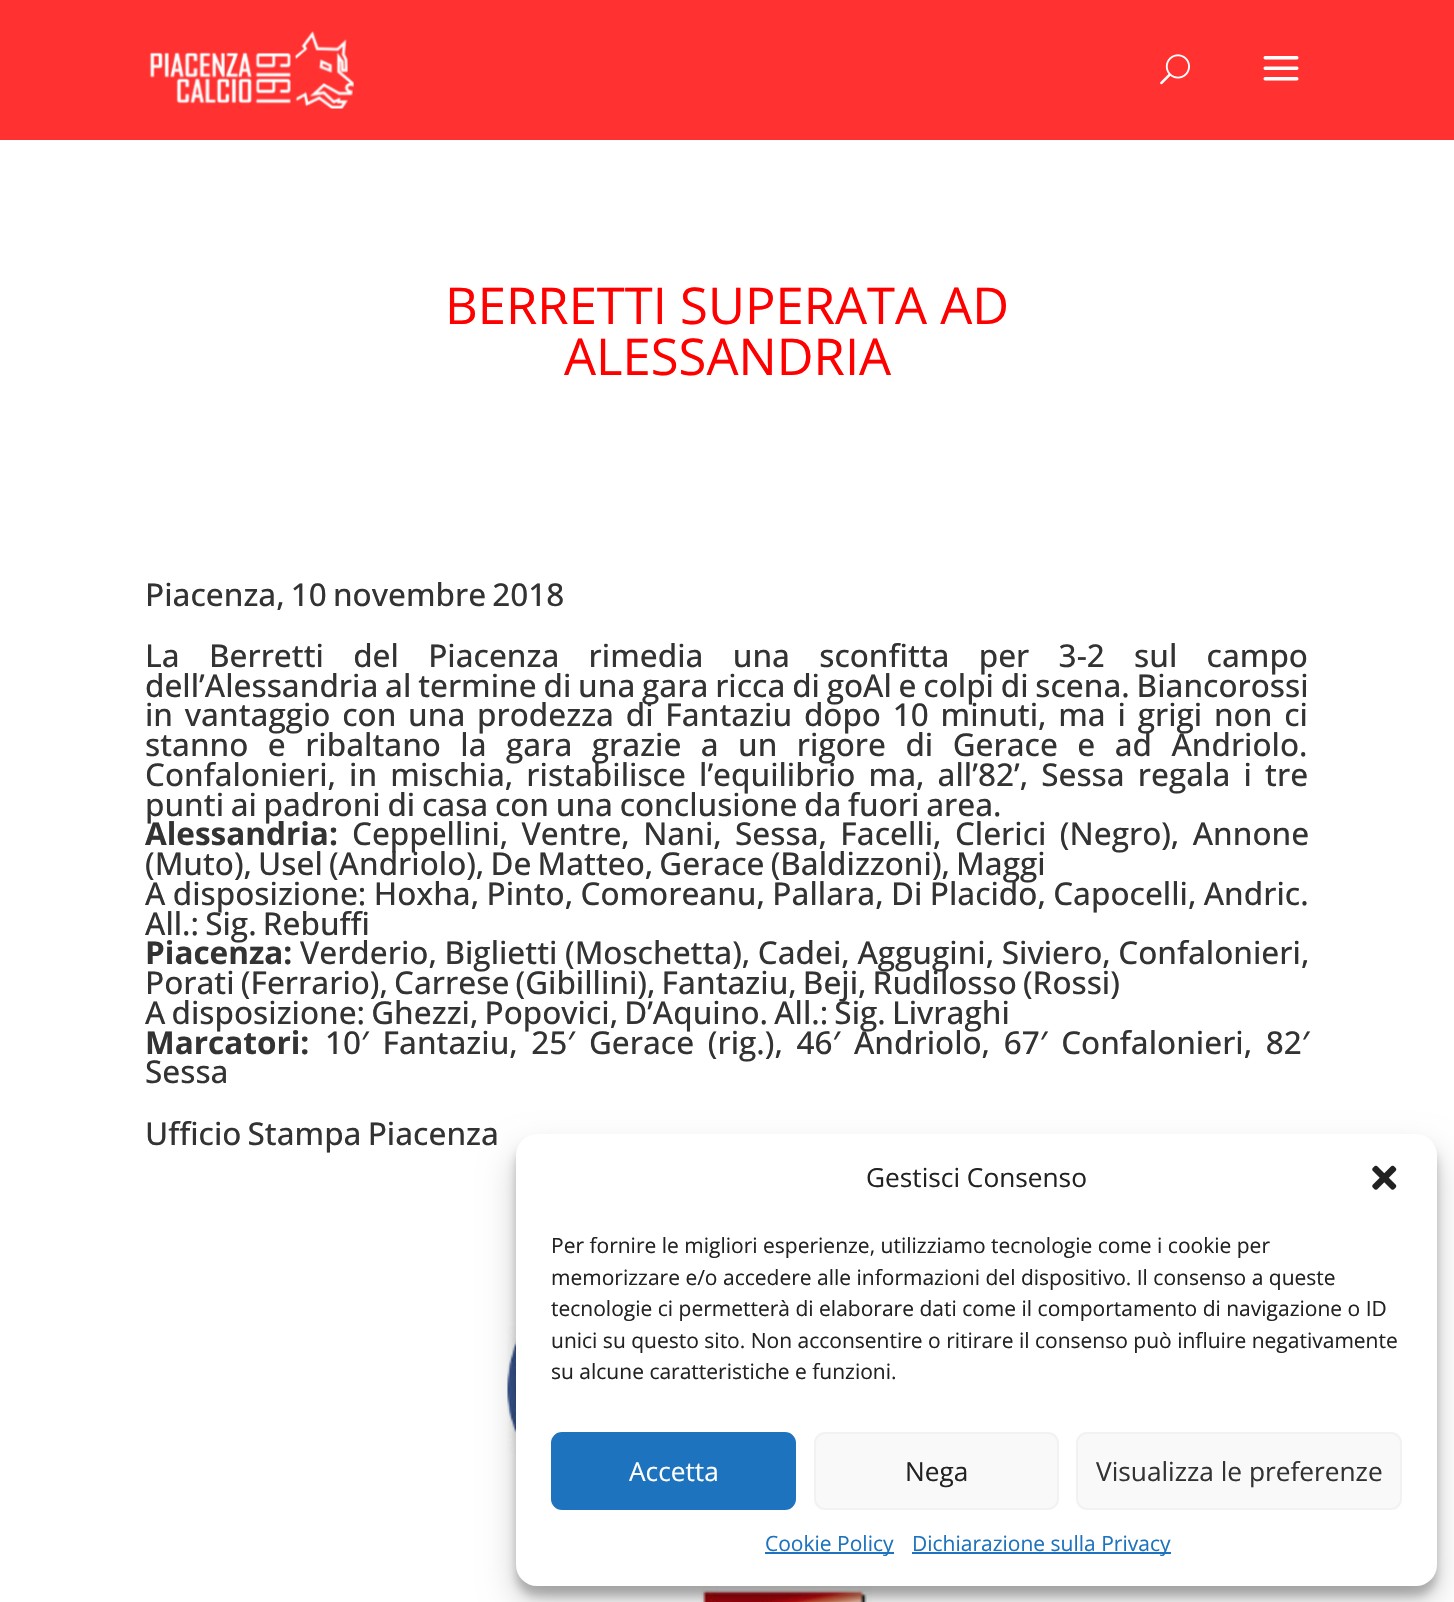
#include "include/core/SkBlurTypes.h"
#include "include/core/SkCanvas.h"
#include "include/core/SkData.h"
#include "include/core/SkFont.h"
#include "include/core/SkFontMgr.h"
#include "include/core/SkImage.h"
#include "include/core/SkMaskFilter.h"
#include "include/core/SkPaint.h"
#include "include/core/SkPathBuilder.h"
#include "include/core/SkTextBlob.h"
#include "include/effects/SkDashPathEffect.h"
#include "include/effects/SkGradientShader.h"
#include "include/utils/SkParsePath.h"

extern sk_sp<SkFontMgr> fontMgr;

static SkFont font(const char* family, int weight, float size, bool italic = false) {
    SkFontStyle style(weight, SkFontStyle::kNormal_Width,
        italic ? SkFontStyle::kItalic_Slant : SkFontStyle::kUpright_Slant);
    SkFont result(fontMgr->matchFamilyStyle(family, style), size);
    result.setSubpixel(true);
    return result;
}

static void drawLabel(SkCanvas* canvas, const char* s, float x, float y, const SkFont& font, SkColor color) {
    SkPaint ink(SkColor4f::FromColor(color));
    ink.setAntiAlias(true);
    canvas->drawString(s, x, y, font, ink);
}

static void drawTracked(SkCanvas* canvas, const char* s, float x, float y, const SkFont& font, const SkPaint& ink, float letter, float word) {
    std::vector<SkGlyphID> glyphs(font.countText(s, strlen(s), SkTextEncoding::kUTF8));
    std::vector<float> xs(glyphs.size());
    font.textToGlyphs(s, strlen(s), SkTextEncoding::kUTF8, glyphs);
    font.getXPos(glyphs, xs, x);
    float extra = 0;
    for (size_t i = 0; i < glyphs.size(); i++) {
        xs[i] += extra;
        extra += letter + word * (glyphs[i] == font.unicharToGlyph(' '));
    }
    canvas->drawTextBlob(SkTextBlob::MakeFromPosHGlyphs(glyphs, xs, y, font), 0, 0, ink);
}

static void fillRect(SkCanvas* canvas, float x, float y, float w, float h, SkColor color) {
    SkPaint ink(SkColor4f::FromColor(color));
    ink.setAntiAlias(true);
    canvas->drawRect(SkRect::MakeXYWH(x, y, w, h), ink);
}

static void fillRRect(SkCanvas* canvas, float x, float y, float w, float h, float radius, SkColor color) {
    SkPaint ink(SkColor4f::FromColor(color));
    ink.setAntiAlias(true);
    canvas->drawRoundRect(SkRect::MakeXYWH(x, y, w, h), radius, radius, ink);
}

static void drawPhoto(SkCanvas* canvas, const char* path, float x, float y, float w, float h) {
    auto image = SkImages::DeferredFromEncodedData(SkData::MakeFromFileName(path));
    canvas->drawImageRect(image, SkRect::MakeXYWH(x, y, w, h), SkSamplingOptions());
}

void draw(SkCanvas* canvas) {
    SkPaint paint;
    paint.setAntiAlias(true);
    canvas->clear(0xFFFFFFFF);
    fillRect(canvas, 0, 0, 1454, 140, 0xFFFF3131);
    drawPhoto(canvas, "assets/img1.png", 149, 31, 205, 78);
    drawPhoto(canvas, "assets/img2.png", 1160, 54, 30, 31);
    drawPhoto(canvas, "assets/img3.png", 1263, 56, 36, 25);
    SkFont font1 = font("Open Sans", 400, 50.75f);
    drawLabel(canvas, "BERRETTI SUPERATA AD", 445, 324, font1, 0xFFFF0000);
    drawLabel(canvas, "ALESSANDRIA", 564, 375, font1, 0xFFFF0000);
    SkFont font2 = font("Open Sans", 500, 31.5f);
    paint.setColor(0xFF333333);
    drawTracked(canvas, "Piacenza, 10 novembre 2018", 145, 606, font2, paint, 0, -2);
    drawTracked(canvas, "La Berretti del Piacenza rimedia una sconfitta per 3-2 sul campo", 145, 667, font2, paint, 0, 21.1f);
    drawTracked(canvas, "dell’Alessandria al termine di una gara ricca di goAl e colpi di scena. Biancorossi", 145, 697, font2, paint, 0, -1.4f);
    drawTracked(canvas, "in vantaggio con una prodezza di Fantaziu dopo 10 minuti, ma i grigi non ci", 145, 726, font2, paint, 0, 3.6f);
    drawTracked(canvas, "stanno e ribaltano la gara grazie a un rigore di Gerace e ad Andriolo.", 145, 756, font2, paint, 0, 11.25f);
    drawTracked(canvas, "Confalonieri, in mischia, ristabilisce l’equilibrio ma, all’82’, Sessa regala i tre", 145, 786, font2, paint, 0, 5);
    drawTracked(canvas, "punti ai padroni di casa con una conclusione da fuori area.", 145, 816, font2, paint, 0, -1.5f);
    SkFont font3 = font("Open Sans", 700, 31.5f);
    drawLabel(canvas, "Alessandria:", 145, 845, font3, 0xFF333333);
    drawTracked(canvas, "Ceppellini, Ventre, Nani, Sessa, Facelli, Clerici (Negro), Annone", 352, 845, font2, paint, 0, 5.25f);
    drawTracked(canvas, "(Muto), Usel (Andriolo), De Matteo, Gerace (Baldizzoni), Maggi", 145, 875, font2, paint, 0, -2);
    drawTracked(canvas, "A disposizione: Hoxha, Pinto, Comoreanu, Pallara, Di Placido, Capocelli, Andric.", 145, 905, font2, paint, 0, -0.75f);
    drawTracked(canvas, "All.: Sig. Rebuffi", 145, 935, font2, paint, 0, -2);
    drawLabel(canvas, "Piacenza:", 145, 964, font3, 0xFF333333);
    drawTracked(canvas, "Verderio, Biglietti (Moschetta), Cadei, Aggugini, Siviero, Confalonieri,", 300, 964, font2, paint, 0, -0.5f);
    drawTracked(canvas, "Porati (Ferrario), Carrese (Gibillini), Fantaziu, Beji, Rudilosso (Rossi)", 145, 994, font2, paint, 0, -2);
    drawTracked(canvas, "A disposizione: Ghezzi, Popovici, D’Aquino. All.: Sig. Livraghi", 145, 1024, font2, paint, 0, -2);
    drawLabel(canvas, "Marcatori:", 145, 1054, font3, 0xFF333333);
    drawTracked(canvas, "10′ Fantaziu, 25′ Gerace (rig.), 46′ Andriolo, 67′ Confalonieri, 82′", 325, 1054, font2, paint, 0, 5.5f);
    drawLabel(canvas, "Sessa", 145, 1083, font2, 0xFF333333);
    drawTracked(canvas, "Ufficio Stampa Piacenza", 145, 1145, font2, paint, 0, -2);
    drawPhoto(canvas, "assets/img4.png", 507, 1242, 9, 247);
    drawPhoto(canvas, "assets/img5.png", 701, 1586, 171, 16);
    paint.setColor(0x3B000000);
    paint.setMaskFilter(SkMaskFilter::MakeBlur(kNormal_SkBlurStyle, 5));
    canvas->drawRoundRect(SkRect::MakeXYWH(516, 1145, 921, 451), 21, 21, paint);
    paint.setMaskFilter(nullptr);
    paint.setColor(0x30000000);
    paint.setMaskFilter(SkMaskFilter::MakeBlur(kNormal_SkBlurStyle, 17.5f));
    canvas->drawRoundRect(SkRect::MakeXYWH(516, 1152, 921, 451), 21, 21, paint);
    paint.setMaskFilter(nullptr);
    fillRRect(canvas, 516, 1134, 921, 452, 21, 0xFFFFFFFF);
    SkFont font4 = font("Open Sans", 400, 26.25f);
    drawLabel(canvas, "Gestisci Consenso", 866, 1187, font4, 0xFF222222);
    drawPhoto(canvas, "assets/img6.png", 1372, 1165, 25, 25);
    SkFont font5 = font("Open Sans", 400, 21);
    drawLabel(canvas, "Per fornire le migliori esperienze, utilizziamo tecnologie come i cookie per", 551, 1253, font5, 0xFF222222);
    drawLabel(canvas, "memorizzare e/o accedere alle informazioni del dispositivo. Il consenso a queste", 551, 1285, font5, 0xFF222222);
    drawLabel(canvas, "tecnologie ci permetterà di elaborare dati come il comportamento di navigazione o ID", 551, 1316, font5, 0xFF222222);
    drawLabel(canvas, "unici su questo sito. Non acconsentire o ritirare il consenso può influire negativamente", 551, 1348, font5, 0xFF222222);
    drawLabel(canvas, "su alcune caratteristiche e funzioni.", 551, 1379, font5, 0xFF222222);
    paint.setColor(0xFF1E73BE);
    canvas->drawRoundRect(SkRect::MakeXYWH(552, 1433, 243, 76), 10, 10, paint);
    paint.setStroke(true);
    paint.setStrokeWidth(2);
    canvas->drawRoundRect(SkRect::MakeXYWH(552, 1433, 243, 76), 10, 10, paint);
    drawLabel(canvas, "Accetta", 629, 1481, font4, 0xFFFFFFFF);
    paint.setStroke(false);
    paint.setColor(0xFFF9F9F9);
    canvas->drawRoundRect(SkRect::MakeXYWH(815, 1433, 243, 76), 10, 10, paint);
    paint.setStroke(true);
    paint.setColor(0xFFF2F2F2);
    canvas->drawRoundRect(SkRect::MakeXYWH(815, 1433, 243, 76), 10, 10, paint);
    drawLabel(canvas, "Nega", 905, 1481, font4, 0xFF222222);
    paint.setStroke(false);
    paint.setColor(0xFFF9F9F9);
    canvas->drawRoundRect(SkRect::MakeXYWH(1077, 1433, 324, 76), 10, 10, paint);
    paint.setStroke(true);
    paint.setColor(0xFFF2F2F2);
    canvas->drawRoundRect(SkRect::MakeXYWH(1077, 1433, 324, 76), 10, 10, paint);
    drawLabel(canvas, "Visualizza le preferenze", 1096, 1481, font4, 0xFF333333);
    fillRect(canvas, 765, 1552, 129, 2, 0xFF1E73BE);
    drawLabel(canvas, "Cookie Policy", 765, 1551, font5, 0xFF1E73BE);
    fillRect(canvas, 912, 1552, 259, 2, 0xFF1E73BE);
    drawLabel(canvas, "Dichiarazione sulla Privacy", 912, 1551, font5, 0xFF1E73BE);
}
